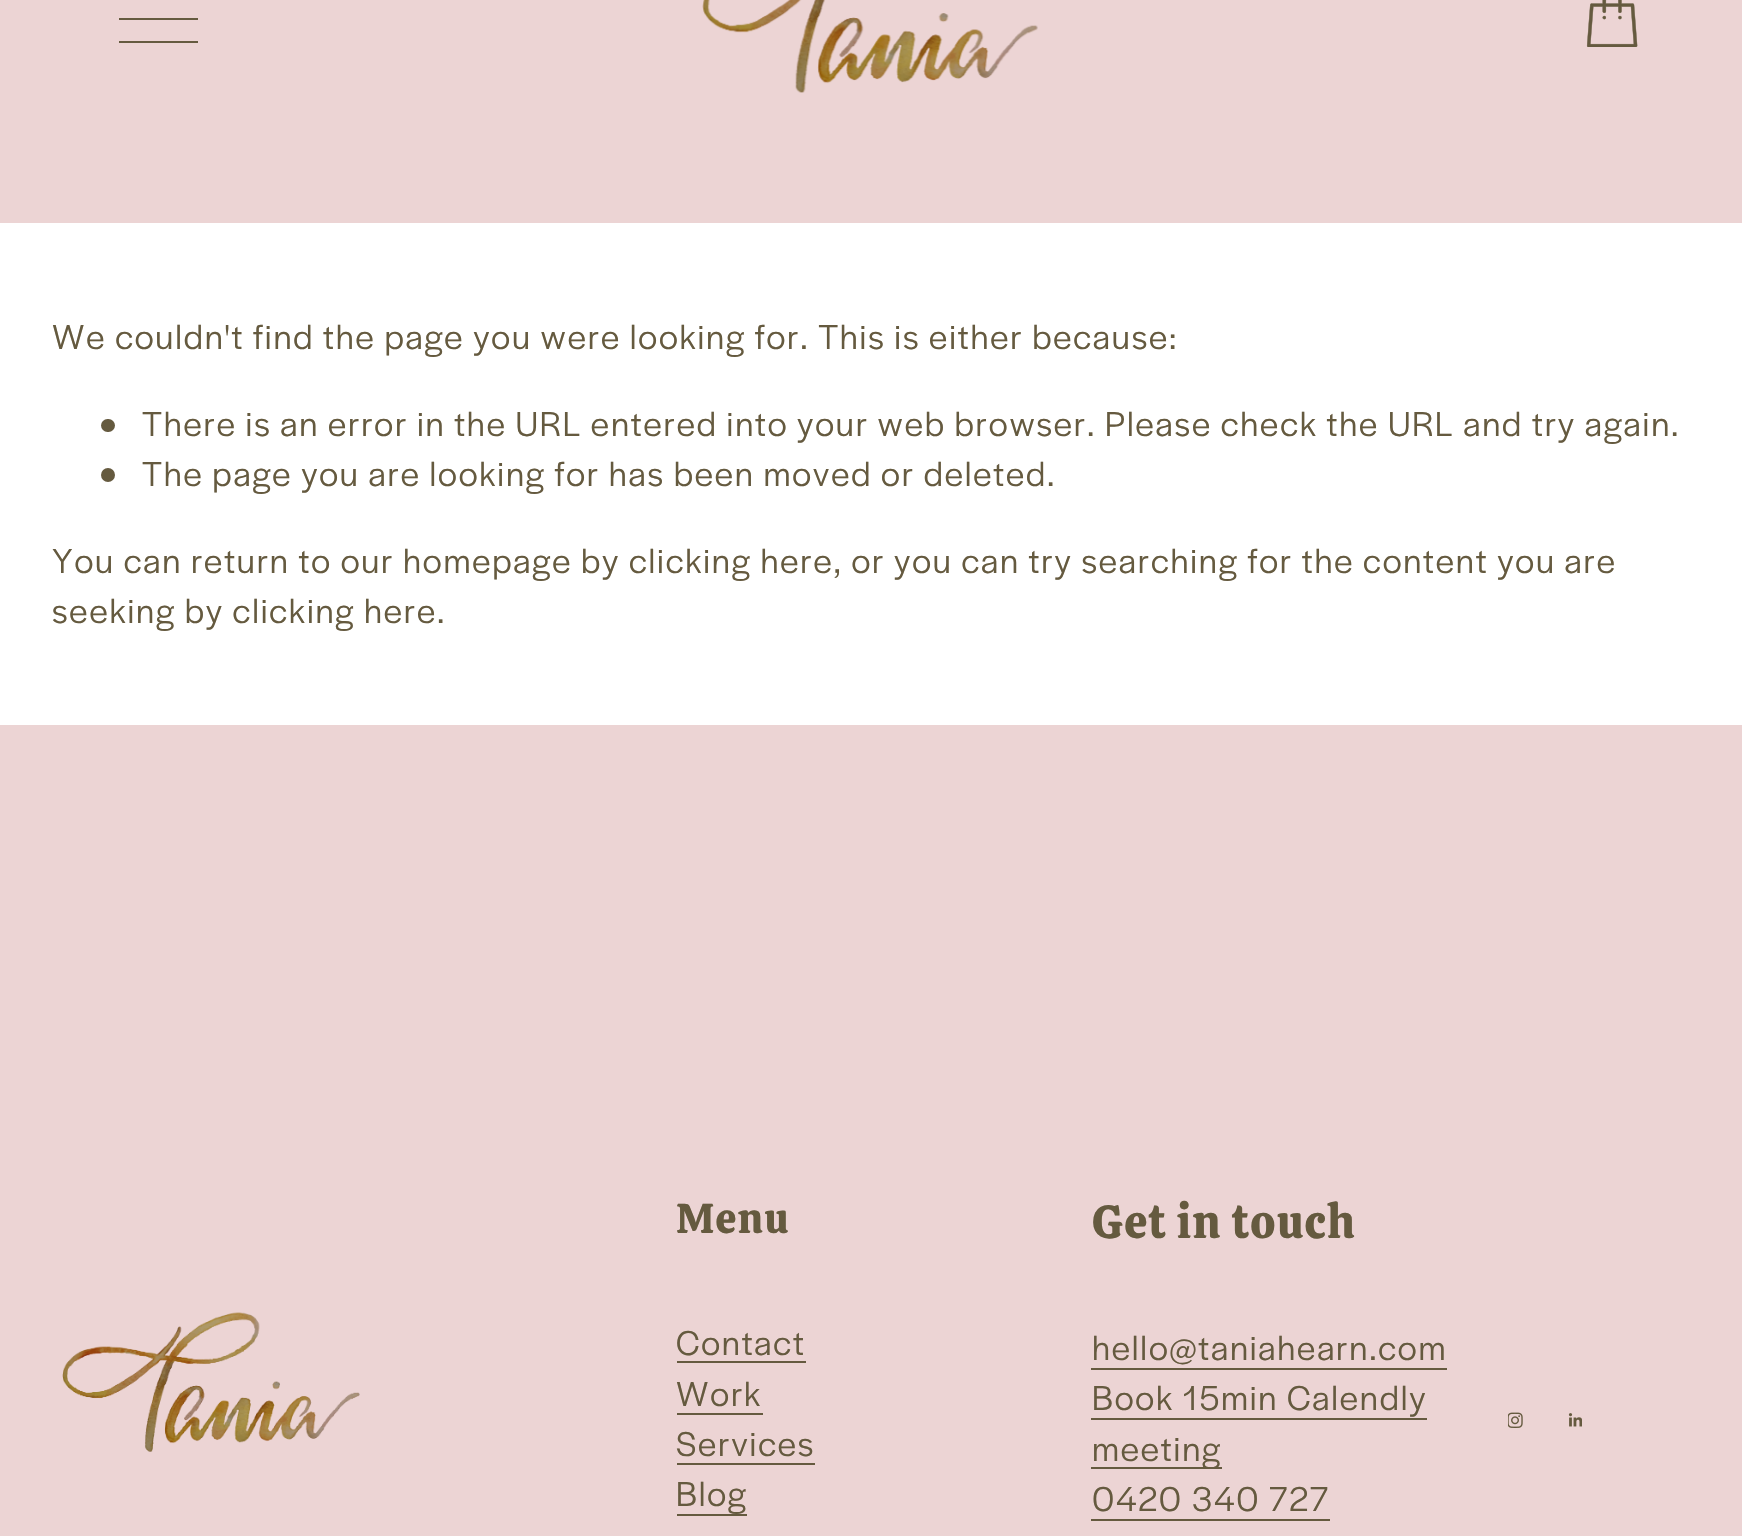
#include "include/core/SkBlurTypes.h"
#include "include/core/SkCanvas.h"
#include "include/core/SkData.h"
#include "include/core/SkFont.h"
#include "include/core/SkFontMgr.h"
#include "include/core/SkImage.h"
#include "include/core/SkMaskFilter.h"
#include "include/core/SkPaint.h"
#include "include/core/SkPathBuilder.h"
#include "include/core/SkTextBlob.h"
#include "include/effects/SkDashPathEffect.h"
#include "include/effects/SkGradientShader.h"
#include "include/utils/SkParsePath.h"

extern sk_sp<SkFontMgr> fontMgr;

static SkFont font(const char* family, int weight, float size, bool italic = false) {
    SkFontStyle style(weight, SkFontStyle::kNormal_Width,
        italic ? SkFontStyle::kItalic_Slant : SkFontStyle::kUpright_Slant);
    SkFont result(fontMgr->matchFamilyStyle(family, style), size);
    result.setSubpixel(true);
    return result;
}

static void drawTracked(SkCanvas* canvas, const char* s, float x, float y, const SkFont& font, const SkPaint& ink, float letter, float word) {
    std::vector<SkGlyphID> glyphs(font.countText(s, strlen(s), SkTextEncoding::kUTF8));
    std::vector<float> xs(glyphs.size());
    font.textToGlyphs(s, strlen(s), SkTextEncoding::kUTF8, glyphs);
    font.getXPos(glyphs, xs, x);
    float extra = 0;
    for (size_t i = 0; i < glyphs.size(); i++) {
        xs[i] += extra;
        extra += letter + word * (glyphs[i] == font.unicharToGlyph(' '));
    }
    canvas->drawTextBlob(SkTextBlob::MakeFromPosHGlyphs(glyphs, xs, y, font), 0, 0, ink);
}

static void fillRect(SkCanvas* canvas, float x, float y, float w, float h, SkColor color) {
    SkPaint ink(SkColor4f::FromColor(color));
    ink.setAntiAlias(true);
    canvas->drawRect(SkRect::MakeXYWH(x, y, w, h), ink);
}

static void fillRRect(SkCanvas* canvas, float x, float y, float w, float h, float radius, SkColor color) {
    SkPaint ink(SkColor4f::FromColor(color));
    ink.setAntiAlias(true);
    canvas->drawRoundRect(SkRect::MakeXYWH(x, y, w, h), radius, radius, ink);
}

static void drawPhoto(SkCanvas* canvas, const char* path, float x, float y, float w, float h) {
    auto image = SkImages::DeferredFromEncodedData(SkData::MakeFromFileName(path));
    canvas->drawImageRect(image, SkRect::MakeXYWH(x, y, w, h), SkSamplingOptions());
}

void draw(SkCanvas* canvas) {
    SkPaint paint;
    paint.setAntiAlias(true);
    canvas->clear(0xFFFFFFFF);
    fillRect(canvas, 0, 0, 1742, 223, 0xFFECD4D4);
    fillRect(canvas, 119, 18, 79, 2, 0xFF655A3F);
    fillRect(canvas, 119, 41, 79, 2, 0xFF655A3F);
    drawPhoto(canvas, "assets/img1.png", 702, 0, 336, 93);
    drawPhoto(canvas, "assets/img2.png", 1586, 0, 52, 47);
    SkFont font1 = font("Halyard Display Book", 400, 36);
    paint.setColor(0xFF655A3F);
    drawTracked(canvas, "We couldn't find the page you were looking for. This is either because:", 52, 349, font1, paint, 1.8f, 0);
    fillRRect(canvas, 101, 419, 14, 13, 6.5f, 0xFF655A3F);
    drawTracked(canvas, "There is an error in the URL entered into your web browser. Please check the URL and try again.", 142, 436, font1, paint, 1.8f, 0);
    canvas->drawCircle(108, 475, 7, paint);
    drawTracked(canvas, "The page you are looking for has been moved or deleted.", 142, 486, font1, paint, 1.8f, 0);
    drawTracked(canvas, "You can return to our homepage by clicking here, or you can try searching for the content you are", 52, 573, font1, paint, 1.8f, 0);
    drawTracked(canvas, "seeking by clicking here.", 52, 623, font1, paint, 1.8f, 0);
    fillRect(canvas, 0, 725, 1742, 811, 0xFFECD4D4);
    drawPhoto(canvas, "assets/img3.png", 62, 1312, 298, 140);
    SkFont font2 = font("Calistoga", 400, 42);
    drawTracked(canvas, "Menu", 676, 1233, font2, paint, 1, 0);
    drawTracked(canvas, "Contact", 676, 1355, font1, paint, 1.8f, 0);
    fillRect(canvas, 677, 1361, 129, 2, 0xFF655A3F);
    drawTracked(canvas, "Work", 676, 1406, font1, paint, 1.8f, 0);
    fillRect(canvas, 677, 1413, 86, 2, 0xFF655A3F);
    drawTracked(canvas, "Services", 676, 1456, font1, paint, 1.8f, 0);
    fillRect(canvas, 677, 1463, 138, 2, 0xFF655A3F);
    drawTracked(canvas, "Blog", 676, 1506, font1, paint, 1.8f, 0);
    fillRect(canvas, 677, 1514, 70, 2, 0xFF655A3F);
    SkFont font3 = font("Calistoga", 400, 46.5f);
    drawTracked(canvas, "Get in touch", 1092, 1238, font3, paint, 1, 0);
    drawTracked(canvas, "hello@taniahearn.com", 1092, 1360, font1, paint, 1.8f, 0);
    fillRect(canvas, 1091, 1368, 356, 2, 0xFF655A3F);
    drawTracked(canvas, "Book 15min Calendly", 1092, 1410, font1, paint, 1.8f, 0);
    fillRect(canvas, 1091, 1418, 336, 2, 0xFF655A3F);
    fillRect(canvas, 1091, 1467, 131, 2, 0xFF655A3F);
    drawTracked(canvas, "meeting", 1092, 1461, font1, paint, 1.8f, 0);
    drawTracked(canvas, "0420 340 727", 1092, 1511, font1, paint, 1.8f, 0);
    fillRect(canvas, 1091, 1519, 239, 2, 0xFF655A3F);
    drawPhoto(canvas, "assets/img4.png", 1508, 1412, 15, 16);
    drawPhoto(canvas, "assets/img5.png", 1568, 1413, 14, 14);
}
